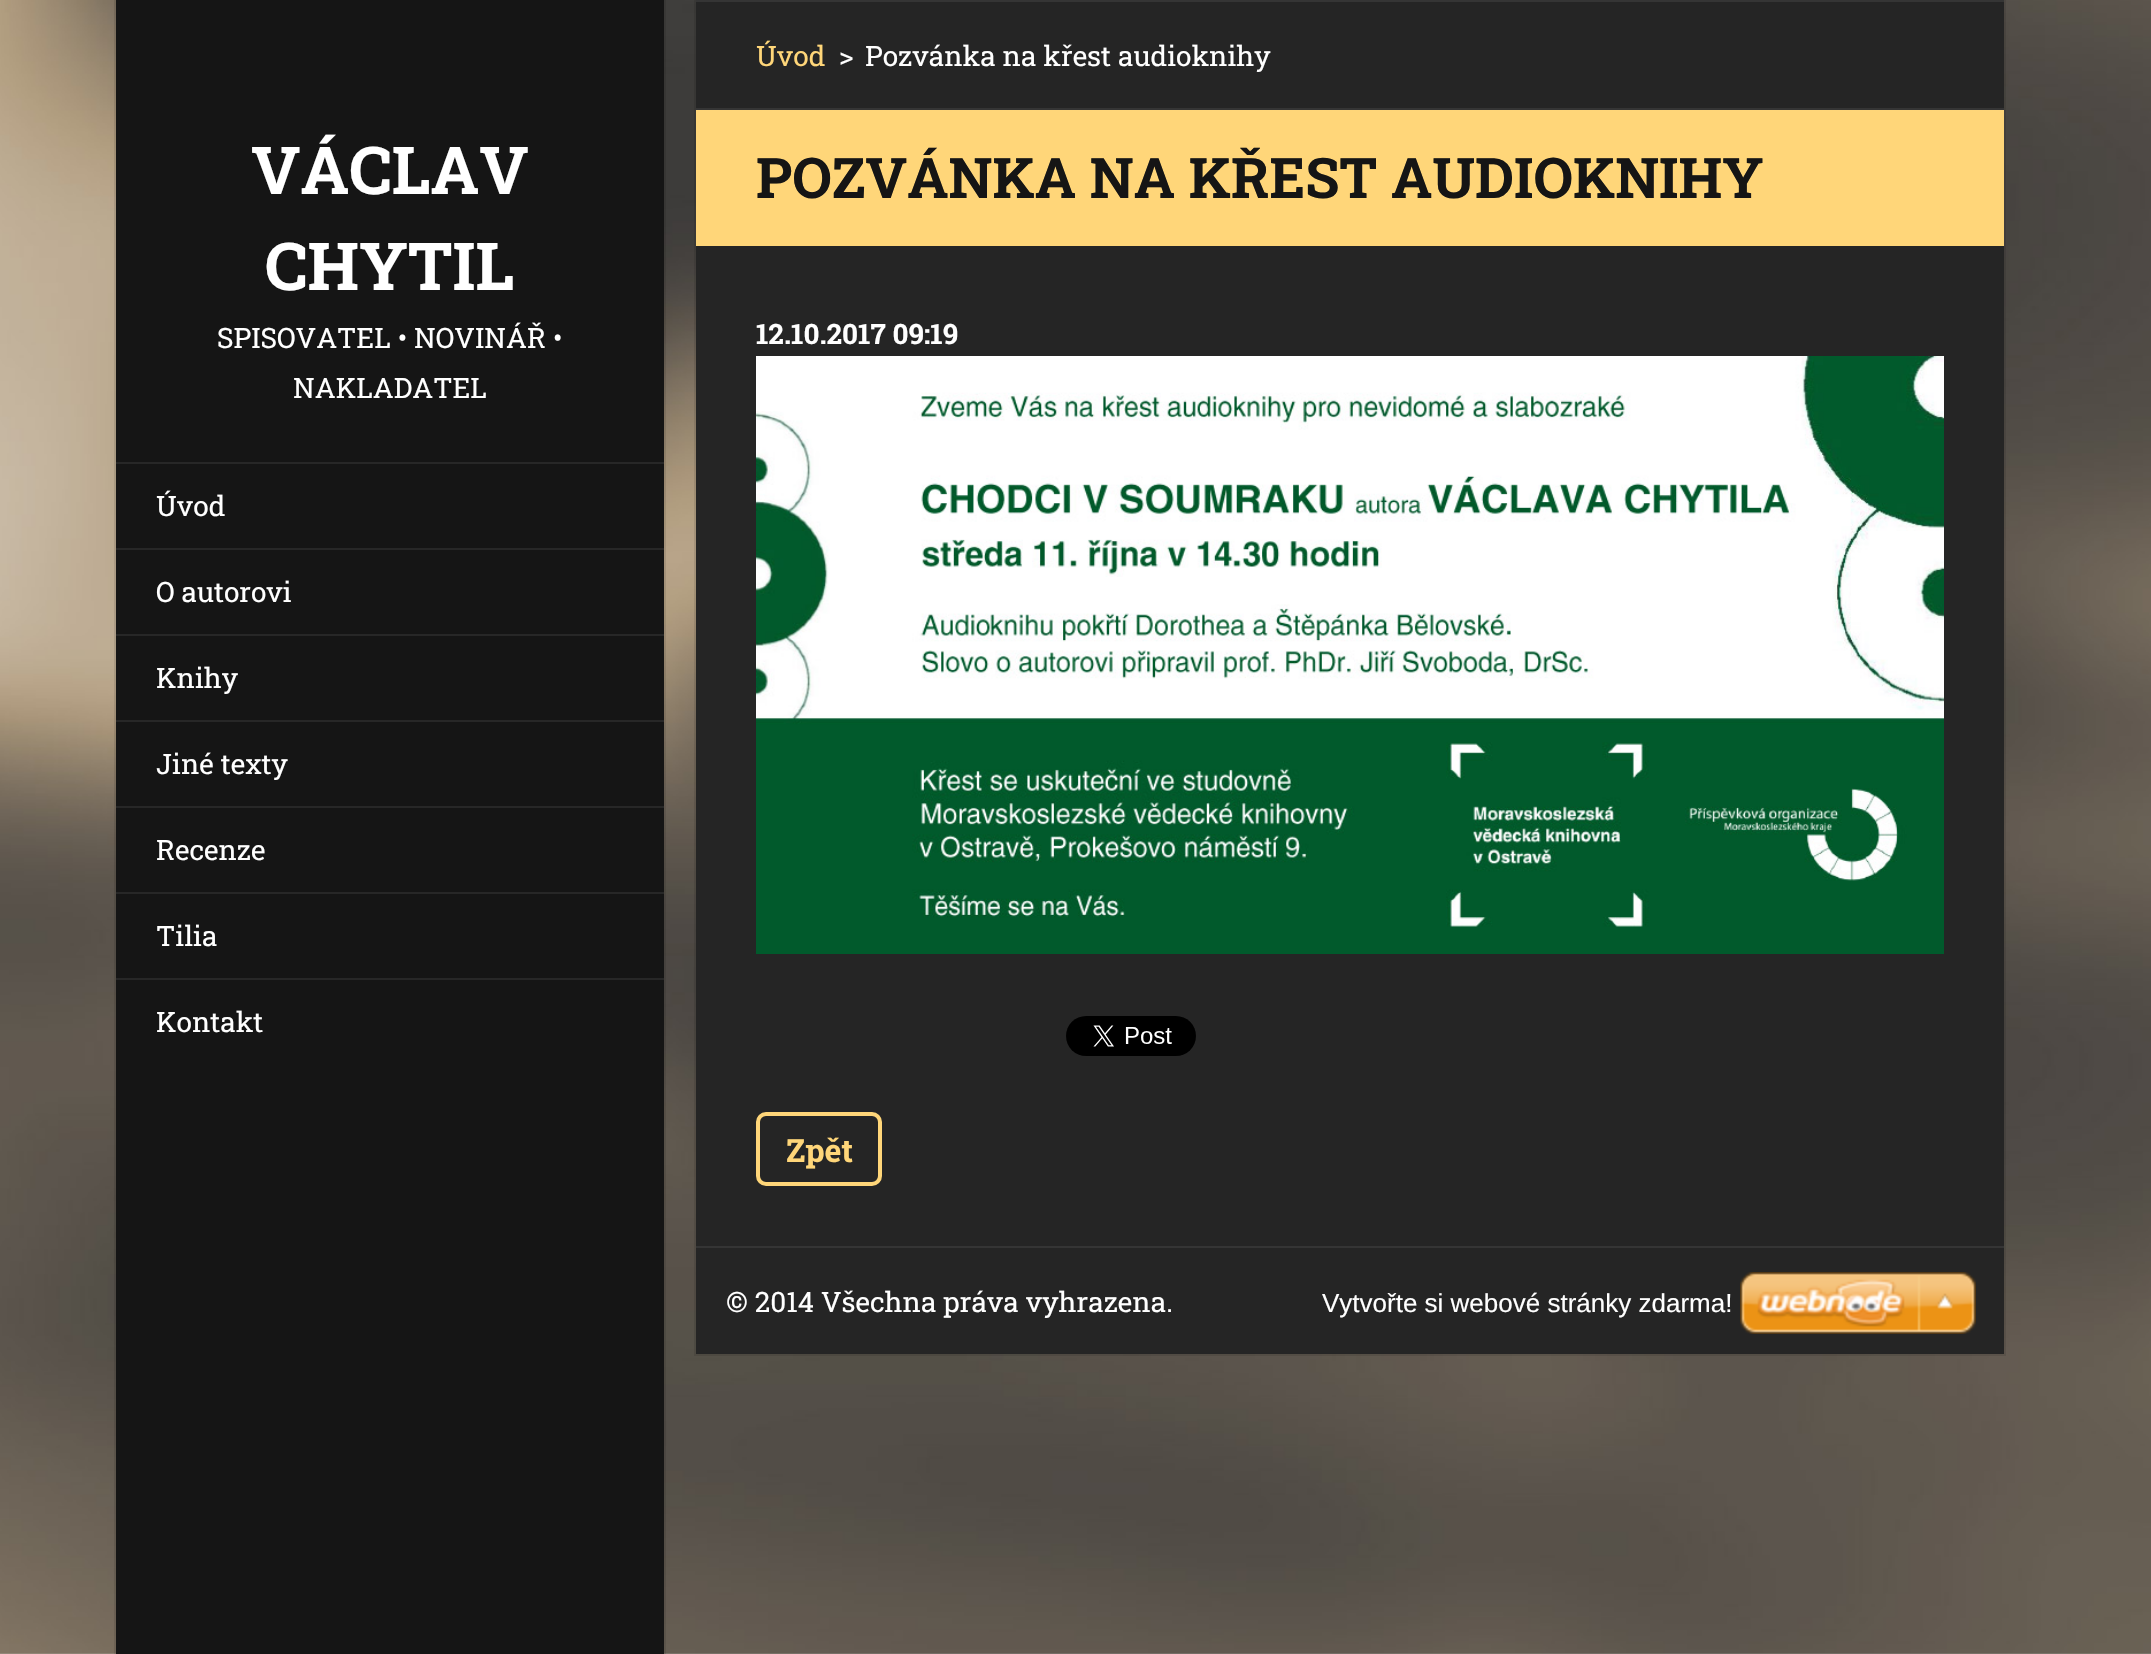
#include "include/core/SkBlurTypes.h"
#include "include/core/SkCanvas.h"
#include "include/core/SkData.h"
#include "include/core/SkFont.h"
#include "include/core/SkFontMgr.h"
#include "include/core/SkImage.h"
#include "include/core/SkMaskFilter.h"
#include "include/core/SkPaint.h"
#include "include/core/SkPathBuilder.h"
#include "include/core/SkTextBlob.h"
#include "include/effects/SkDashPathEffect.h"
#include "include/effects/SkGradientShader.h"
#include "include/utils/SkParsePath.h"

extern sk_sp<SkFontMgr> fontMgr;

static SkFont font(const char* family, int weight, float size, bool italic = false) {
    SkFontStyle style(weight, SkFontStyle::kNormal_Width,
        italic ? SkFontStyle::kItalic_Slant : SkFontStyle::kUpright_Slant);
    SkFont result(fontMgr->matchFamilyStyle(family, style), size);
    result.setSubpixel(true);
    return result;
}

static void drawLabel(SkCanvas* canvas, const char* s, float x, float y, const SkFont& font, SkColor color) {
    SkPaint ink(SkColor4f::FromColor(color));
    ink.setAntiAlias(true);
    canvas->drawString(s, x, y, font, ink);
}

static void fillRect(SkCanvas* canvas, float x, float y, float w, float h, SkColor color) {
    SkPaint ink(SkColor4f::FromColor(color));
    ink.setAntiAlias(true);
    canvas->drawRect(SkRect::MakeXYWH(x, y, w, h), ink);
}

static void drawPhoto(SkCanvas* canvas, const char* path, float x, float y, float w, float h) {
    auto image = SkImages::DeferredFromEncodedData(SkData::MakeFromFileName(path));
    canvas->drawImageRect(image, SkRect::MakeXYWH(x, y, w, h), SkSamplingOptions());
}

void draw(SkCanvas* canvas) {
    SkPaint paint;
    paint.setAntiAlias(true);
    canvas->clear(0xFFFFFFFF);
    drawPhoto(canvas, "assets/img1.png", 0, 0, 2151, 1654);
    fillRect(canvas, 116, 0, 548, 1654, 0xFF151515);
    paint.setStroke(true);
    paint.setStrokeWidth(2);
    paint.setColor(0x1A000000);
    canvas->drawRect(SkRect::MakeXYWH(115, -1, 550, 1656), paint);
    SkFont font1 = font("Roboto Slab", 700, 66);
    drawLabel(canvas, "VÁCLAV", 251, 194, font1, 0xFFFFFFFF);
    drawLabel(canvas, "CHYTIL", 265, 290, font1, 0xFFFFFFFF);
    SkFont font2 = font("Roboto Slab", 400, 28);
    drawLabel(canvas, "SPISOVATEL • NOVINÁŘ •", 217, 348, font2, 0xFFFFFFFF);
    drawLabel(canvas, "NAKLADATEL", 293, 398, font2, 0xFFFFFFFF);
    fillRect(canvas, 116, 462, 548, 2, 0xFF272727);
    drawLabel(canvas, "Úvod", 156, 516, font2, 0xFFFFFFFF);
    fillRect(canvas, 116, 548, 548, 2, 0xFF272727);
    drawLabel(canvas, "O autorovi", 156, 602, font2, 0xFFFFFFFF);
    fillRect(canvas, 116, 634, 548, 2, 0xFF272727);
    drawLabel(canvas, "Knihy", 156, 688, font2, 0xFFFFFFFF);
    fillRect(canvas, 116, 720, 548, 2, 0xFF272727);
    drawLabel(canvas, "Jiné texty", 156, 774, font2, 0xFFFFFFFF);
    fillRect(canvas, 116, 806, 548, 2, 0xFF272727);
    drawLabel(canvas, "Recenze", 156, 860, font2, 0xFFFFFFFF);
    fillRect(canvas, 116, 892, 548, 2, 0xFF272727);
    drawLabel(canvas, "Tilia", 156, 946, font2, 0xFFFFFFFF);
    fillRect(canvas, 116, 978, 548, 2, 0xFF272727);
    drawLabel(canvas, "Kontakt", 156, 1032, font2, 0xFFFFFFFF);
    fillRect(canvas, 696, 2, 1308, 106, 0xFF252525);
    fillRect(canvas, 696, 0, 1308, 2, 0xFF353535);
    canvas->drawRect(SkRect::MakeXYWH(695, -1, 1310, 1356), paint);
    drawLabel(canvas, "Úvod", 756, 66, font2, 0xFFFFD679);
    drawLabel(canvas, ">", 839, 66, font2, 0xFFFFFFFF);
    drawLabel(canvas, "Pozvánka na křest audioknihy", 865, 66, font2, 0xFFFFFFFF);
    fillRect(canvas, 696, 108, 1308, 2, 0xFF353535);
    fillRect(canvas, 696, 110, 1308, 136, 0xFFFFD679);
    SkFont font3 = font("Roboto Slab", 700, 56);
    drawLabel(canvas, "POZVÁNKA NA KŘEST AUDIOKNIHY", 756, 198, font3, 0xFF151515);
    fillRect(canvas, 696, 246, 1308, 1000, 0xFF252525);
    SkFont font4 = font("Roboto Slab", 700, 28);
    drawLabel(canvas, "12.10.2017 09:19", 756, 344, font4, 0xFFFFFFFF);
    drawPhoto(canvas, "assets/img2.png", 756, 356, 1188, 598);
    drawPhoto(canvas, "assets/img3.png", 1066, 1016, 130, 40);
    paint.setStrokeWidth(4);
    paint.setColor(0xFFFFD679);
    canvas->drawRoundRect(SkRect::MakeXYWH(758, 1114, 122, 70), 8, 8, paint);
    SkFont font5 = font("Roboto Slab", 700, 32);
    drawLabel(canvas, "Zpět", 786, 1162, font5, 0xFFFFD679);
    fillRect(canvas, 696, 1248, 1308, 106, 0xFF252525);
    fillRect(canvas, 696, 1246, 1308, 2, 0xFF353535);
    drawLabel(canvas, "© 2014 Všechna práva vyhrazena.", 726, 1312, font2, 0xFFFFFFFF);
    SkFont font6 = font("Liberation Sans", 400, 26);
    drawLabel(canvas, "Vytvořte si webové stránky zdarma!", 1322, 1312, font6, 0xFFFFFFFF);
    drawPhoto(canvas, "assets/img4.png", 1740, 1272, 236, 62);
}
